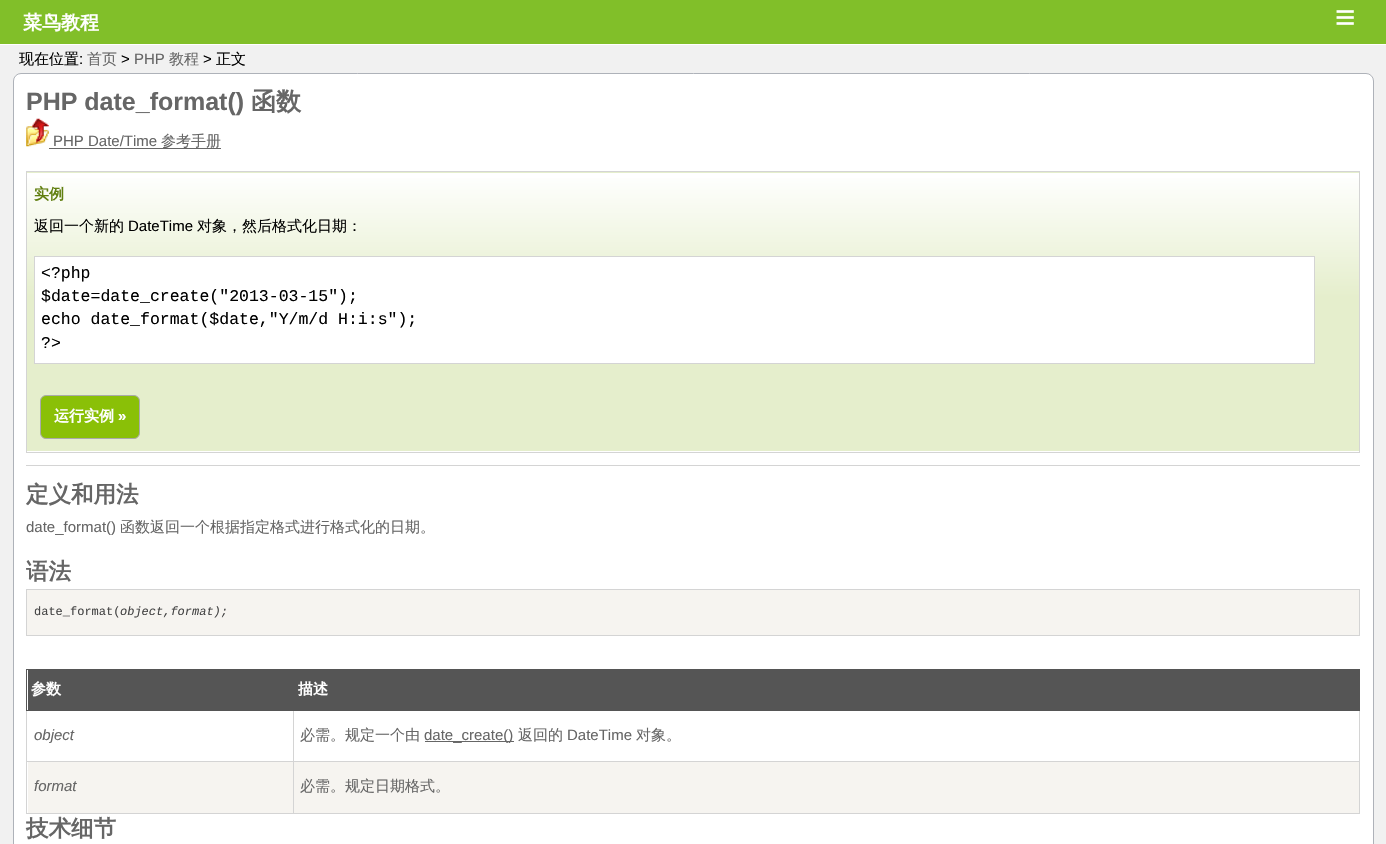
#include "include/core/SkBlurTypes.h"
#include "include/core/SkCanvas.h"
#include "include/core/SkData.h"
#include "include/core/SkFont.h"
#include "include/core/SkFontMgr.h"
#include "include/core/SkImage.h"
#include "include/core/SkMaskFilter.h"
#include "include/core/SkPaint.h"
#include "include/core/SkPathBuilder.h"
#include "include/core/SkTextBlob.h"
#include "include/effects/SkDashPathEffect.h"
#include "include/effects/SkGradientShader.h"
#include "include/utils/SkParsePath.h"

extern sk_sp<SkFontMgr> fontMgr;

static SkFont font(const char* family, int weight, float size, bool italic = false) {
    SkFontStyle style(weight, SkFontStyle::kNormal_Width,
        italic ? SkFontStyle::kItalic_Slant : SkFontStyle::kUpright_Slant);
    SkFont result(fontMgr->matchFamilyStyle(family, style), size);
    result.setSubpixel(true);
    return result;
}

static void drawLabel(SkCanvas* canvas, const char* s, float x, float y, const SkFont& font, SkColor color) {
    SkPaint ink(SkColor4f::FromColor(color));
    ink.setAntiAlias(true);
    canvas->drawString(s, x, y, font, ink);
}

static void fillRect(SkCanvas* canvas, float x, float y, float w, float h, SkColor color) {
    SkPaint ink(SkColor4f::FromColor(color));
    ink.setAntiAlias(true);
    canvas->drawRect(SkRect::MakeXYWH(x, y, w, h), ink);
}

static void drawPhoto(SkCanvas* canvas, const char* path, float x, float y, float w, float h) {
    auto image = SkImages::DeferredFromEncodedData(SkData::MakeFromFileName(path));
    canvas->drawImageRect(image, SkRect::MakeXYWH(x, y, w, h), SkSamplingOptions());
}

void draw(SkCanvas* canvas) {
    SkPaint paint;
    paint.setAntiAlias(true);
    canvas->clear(0xFFF1F1F1);
    fillRect(canvas, 0, 0, 1386, 44, 0xFF81BF29);
    fillRect(canvas, 0, 44, 1386, 1, 0xFFFFFFFF);
    SkFont font1 = font("WenQuanYi Zen Hei", 700, 19);
    drawLabel(canvas, "菜鸟教程", 23, 29, font1, 0xFFFFFFFF);
    SkFont font2 = font("Liberation Sans", 400, 35);
    drawLabel(canvas, "≡", 1335, 29, font2, 0xFFFFFFFF);
    SkFont font3 = font("WenQuanYi Zen Hei", 500, 15);
    drawLabel(canvas, "现在位置", 19, 64, font3, 0xFF000000);
    SkFont font4 = font("Liberation Sans", 400, 15);
    drawLabel(canvas, ":", 79, 64, font4, 0xFF000000);
    drawLabel(canvas, "首页", 87, 64, font3, 0xFF666666);
    drawLabel(canvas, ">", 121, 64, font4, 0xFF000000);
    drawLabel(canvas, "PHP", 134, 64, font4, 0xFF666666);
    drawLabel(canvas, "教程", 169, 64, font3, 0xFF666666);
    drawLabel(canvas, ">", 203, 64, font4, 0xFF000000);
    drawLabel(canvas, "正文", 216, 64, font3, 0xFF000000);
    paint.setColor(0xFFFFFFFF);
    canvas->drawRoundRect(SkRect::MakeXYWH(13.5f, 73.5f, 1360, 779), 7.5f, 7.5f, paint);
    paint.setStroke(true);
    paint.setStrokeWidth(1);
    paint.setColor(0xFFAEB2B9);
    canvas->drawRoundRect(SkRect::MakeXYWH(13.5f, 73.5f, 1360, 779), 7.5f, 7.5f, paint);
    SkFont font5 = font("Liberation Sans", 700, 25);
    drawLabel(canvas, "PHP date_format()", 26, 110, font5, 0xFF666666);
    SkFont font6 = font("WenQuanYi Zen Hei", 700, 25);
    drawLabel(canvas, "函数", 251, 110, font6, 0xFF666666);
    drawPhoto(canvas, "assets/img1.png", 26, 118, 23, 29);
    drawLabel(canvas, "PHP Date/Time", 53, 146, font4, 0xFF666666);
    fillRect(canvas, 49, 148, 172, 1, 0xFF666666);
    drawLabel(canvas, "参考手册", 161, 146, font3, 0xFF666666);
    fillRect(canvas, 27, 172, 1332, 1, 0xFFE5EECC);
    paint.setStroke(false);
    {
        const SkColor colors[] = {0xFFFFFFFF, 0xFFE5EECC};
        const float stops[] = {0, 0.45f};
        const SkPoint ends[] = {{693, 172}, {693, 451}};
        paint.setShader(SkGradientShader::MakeLinear(ends, colors, stops, 2, SkTileMode::kClamp));
        paint.setAlpha(255);
    }
    canvas->drawRect(SkRect::MakeXYWH(27, 178, 1332, 273), paint);
    paint.setStroke(true);
    paint.setShader(nullptr);
    paint.setColor(0xFFD4D4D4);
    canvas->drawRect(SkRect::MakeXYWH(26.5f, 171.5f, 1333, 281), paint);
    SkFont font7 = font("WenQuanYi Zen Hei", 700, 15);
    drawLabel(canvas, "实例", 34, 199, font7, 0xFF617F10);
    drawLabel(canvas, "返回一个新的", 34, 231, font3, 0xFF000000);
    drawLabel(canvas, "DateTime", 128, 231, font4, 0xFF000000);
    drawLabel(canvas, "对象，然后格式化日期：", 197, 231, font3, 0xFF000000);
    paint.setStroke(false);
    paint.setColor(0xFFFFFFFF);
    canvas->drawRect(SkRect::MakeXYWH(34.5f, 256.5f, 1280, 107), paint);
    paint.setStroke(true);
    paint.setColor(0xFFD4D4D4);
    canvas->drawRect(SkRect::MakeXYWH(34.5f, 256.5f, 1280, 107), paint);
    SkFont font8 = font("Liberation Mono", 400, 16.5f);
    drawLabel(canvas, "<?php", 41, 278, font8, 0xFF000000);
    drawLabel(canvas, "$date=date_create(\"2013-03-15\");", 41, 301, font8, 0xFF000000);
    drawLabel(canvas, "echo date_format($date,\"Y/m/d H:i:s\");", 41, 324, font8, 0xFF000000);
    drawLabel(canvas, "?>", 41, 348, font8, 0xFF000000);
    paint.setStroke(false);
    paint.setColor(0xFF8AC007);
    canvas->drawRoundRect(SkRect::MakeXYWH(40.5f, 395.5f, 99, 43), 5.5f, 5.5f, paint);
    paint.setStroke(true);
    paint.setColor(0xFFAAAAAA);
    canvas->drawRoundRect(SkRect::MakeXYWH(40.5f, 395.5f, 99, 43), 5.5f, 5.5f, paint);
    drawLabel(canvas, "运行实例", 54, 421, font7, 0xFFFFFFFF);
    SkFont font9 = font("Liberation Sans", 700, 15);
    drawLabel(canvas, "»", 118, 421, font9, 0xFFFFFFFF);
    fillRect(canvas, 26, 465, 1334, 1, 0xFFD4D4D4);
    SkFont font10 = font("WenQuanYi Zen Hei", 700, 22.5f);
    drawLabel(canvas, "定义和用法", 26, 502, font10, 0xFF666666);
    drawLabel(canvas, "date_format()", 26, 532, font4, 0xFF666666);
    drawLabel(canvas, "函数返回一个根据指定格式进行格式化的日期。", 120, 532, font3, 0xFF666666);
    drawLabel(canvas, "语法", 26, 579, font10, 0xFF666666);
    paint.setStroke(false);
    paint.setColor(0xFFF6F4F0);
    canvas->drawRect(SkRect::MakeXYWH(26.5f, 589.5f, 1333, 46), paint);
    paint.setStroke(true);
    paint.setColor(0xFFD4D4D4);
    canvas->drawRect(SkRect::MakeXYWH(26.5f, 589.5f, 1333, 46), paint);
    SkFont font11 = font("Liberation Mono", 400, 12);
    drawLabel(canvas, "date_format(", 34, 615, font11, 0xFF444444);
    SkFont font12 = font("Liberation Mono", 400, 12, true);
    drawLabel(canvas, "object,format);", 120, 615, font12, 0xFF444444);
    fillRect(canvas, 28, 670, 266, 40, 0xFF555555);
    fillRect(canvas, 26, 669, 268, 1, 0xFF555555);
    fillRect(canvas, 293, 761, 1067, 1, 0xFFD4D4D4);
    fillRect(canvas, 1359, 710, 1, 104, 0xFFD4D4D4);
    fillRect(canvas, 1359, 669, 1, 42, 0xFF555555);
    fillRect(canvas, 28, 762, 1331, 51, 0xFFF6F4F0);
    fillRect(canvas, 293, 813, 1067, 1, 0xFFD4D4D4);
    fillRect(canvas, 293, 761, 1, 53, 0xFFD4D4D4);
    fillRect(canvas, 26, 761, 268, 1, 0xFFD4D4D4);
    fillRect(canvas, 293, 710, 1, 53, 0xFFD4D4D4);
    fillRect(canvas, 26, 813, 268, 1, 0xFFD4D4D4);
    fillRect(canvas, 26, 710, 1, 104, 0xFFD4D4D4);
    fillRect(canvas, 26, 710, 1334, 1, 0xFF555555);
    fillRect(canvas, 26, 669, 1, 42, 0xFF555555);
    drawLabel(canvas, "参数", 31, 694, font7, 0xFFFFFFFF);
    fillRect(canvas, 294, 669, 1065, 41, 0xFF555555);
    drawLabel(canvas, "描述", 298, 694, font7, 0xFFFFFFFF);
    SkFont font13 = font("Liberation Sans", 400, 15, true);
    drawLabel(canvas, "object", 34, 740, font13, 0xFF666666);
    drawLabel(canvas, "必需。规定一个由", 300, 740, font3, 0xFF666666);
    fillRect(canvas, 425, 741, 89, 1, 0xFF666666);
    drawLabel(canvas, "date_create()", 424, 740, font4, 0xFF666666);
    drawLabel(canvas, "返回的", 518, 740, font3, 0xFF666666);
    drawLabel(canvas, "DateTime", 567, 740, font4, 0xFF666666);
    drawLabel(canvas, "对象。", 636, 740, font3, 0xFF666666);
    drawLabel(canvas, "format", 34, 791, font13, 0xFF666666);
    drawLabel(canvas, "必需。规定日期格式。", 300, 791, font3, 0xFF666666);
    drawLabel(canvas, "技术细节", 26, 836, font10, 0xFF666666);
}
